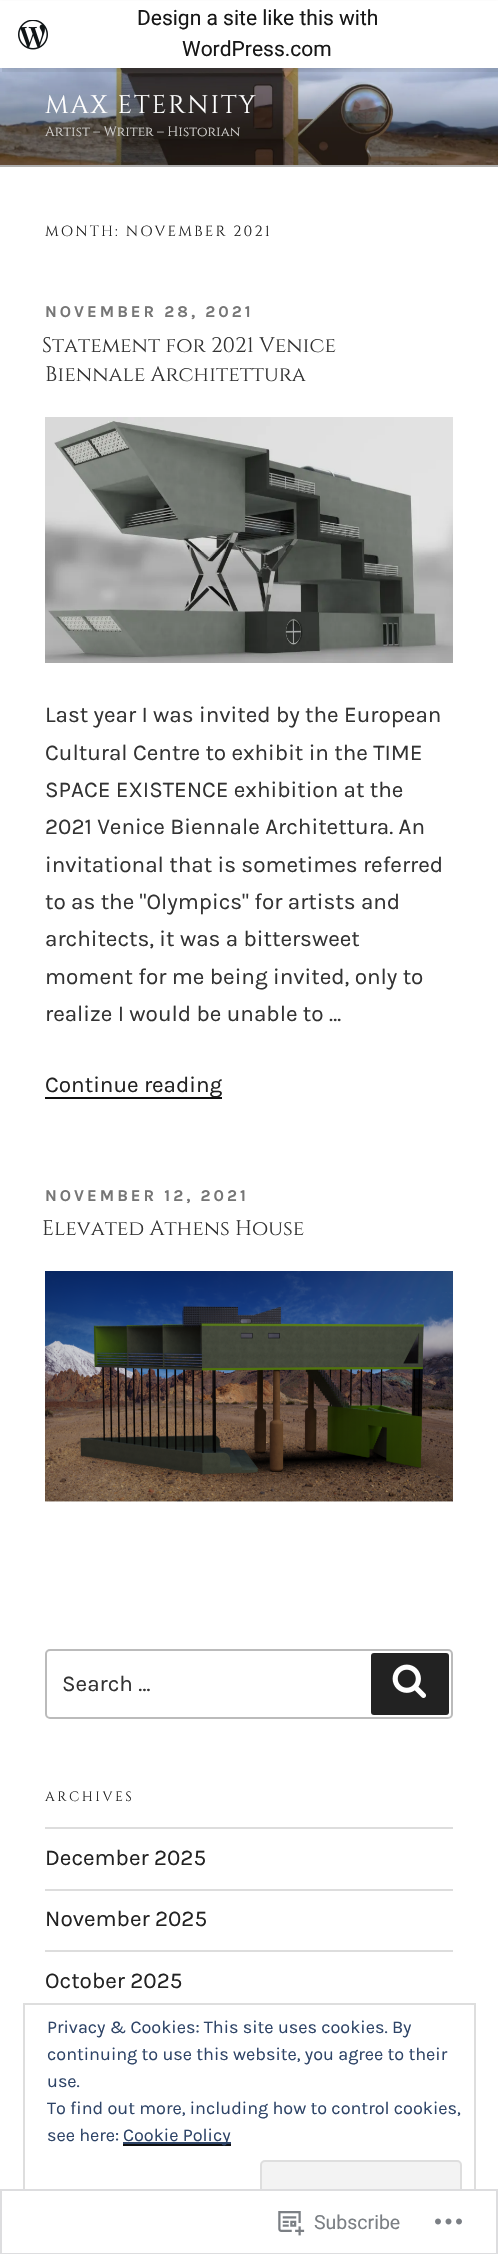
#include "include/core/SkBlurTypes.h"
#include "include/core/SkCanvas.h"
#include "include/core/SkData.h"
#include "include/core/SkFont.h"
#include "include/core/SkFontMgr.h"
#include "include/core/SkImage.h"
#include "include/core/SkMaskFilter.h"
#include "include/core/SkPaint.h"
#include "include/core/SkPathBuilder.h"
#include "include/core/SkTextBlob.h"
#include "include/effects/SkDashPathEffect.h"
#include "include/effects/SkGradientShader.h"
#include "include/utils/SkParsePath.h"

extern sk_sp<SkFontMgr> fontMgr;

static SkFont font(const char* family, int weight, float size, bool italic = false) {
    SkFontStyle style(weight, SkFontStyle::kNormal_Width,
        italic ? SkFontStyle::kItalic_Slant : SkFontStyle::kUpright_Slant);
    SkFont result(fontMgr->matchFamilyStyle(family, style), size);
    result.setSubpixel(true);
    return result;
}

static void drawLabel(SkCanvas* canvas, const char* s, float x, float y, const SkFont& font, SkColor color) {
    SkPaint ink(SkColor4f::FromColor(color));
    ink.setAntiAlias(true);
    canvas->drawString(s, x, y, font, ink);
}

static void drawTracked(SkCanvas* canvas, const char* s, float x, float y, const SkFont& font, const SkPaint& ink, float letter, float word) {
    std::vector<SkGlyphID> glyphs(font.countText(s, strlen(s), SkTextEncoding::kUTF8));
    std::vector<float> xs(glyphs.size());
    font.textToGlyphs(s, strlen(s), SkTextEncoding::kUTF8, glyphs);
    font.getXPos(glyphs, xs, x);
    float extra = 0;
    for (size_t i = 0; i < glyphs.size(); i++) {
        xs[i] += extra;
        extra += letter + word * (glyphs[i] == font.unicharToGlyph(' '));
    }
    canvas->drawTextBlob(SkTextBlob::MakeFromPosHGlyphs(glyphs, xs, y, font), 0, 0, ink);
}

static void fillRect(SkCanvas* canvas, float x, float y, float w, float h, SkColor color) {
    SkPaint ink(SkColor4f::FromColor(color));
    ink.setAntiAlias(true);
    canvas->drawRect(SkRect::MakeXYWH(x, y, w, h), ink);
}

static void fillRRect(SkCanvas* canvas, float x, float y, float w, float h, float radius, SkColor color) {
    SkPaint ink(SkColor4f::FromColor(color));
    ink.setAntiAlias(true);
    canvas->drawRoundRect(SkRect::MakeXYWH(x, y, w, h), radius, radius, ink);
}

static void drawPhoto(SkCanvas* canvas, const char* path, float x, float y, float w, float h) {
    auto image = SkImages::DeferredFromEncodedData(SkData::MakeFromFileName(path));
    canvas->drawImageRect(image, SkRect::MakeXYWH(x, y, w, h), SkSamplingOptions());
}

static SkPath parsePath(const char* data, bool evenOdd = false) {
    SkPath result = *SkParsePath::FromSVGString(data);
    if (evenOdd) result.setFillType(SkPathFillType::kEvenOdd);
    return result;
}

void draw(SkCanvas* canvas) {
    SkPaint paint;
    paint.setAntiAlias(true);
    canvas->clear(0xFFFFFFFF);
    drawPhoto(canvas, "assets/img2.png", 0, 68, 498, 97);
    fillRect(canvas, 0, 165, 498, 2, 0xFFFAFAFA);
    {
        const SkColor colors[] = {0x00000000, 0x4D000000, 0x4D000000};
        const float stops[] = {0, 0.75f, 1};
        const SkPoint ends[] = {{249, 67}, {249, 167}};
        paint.setShader(SkGradientShader::MakeLinear(ends, colors, stops, 3, SkTileMode::kClamp));
        paint.setAlpha(255);
    }
    canvas->drawRect(SkRect::MakeXYWH(0, 72, 498, 95), paint);
    paint.setShader(nullptr);
    paint.setColor(0x0D000000);
    paint.setMaskFilter(SkMaskFilter::MakeBlur(kNormal_SkBlurStyle, 1.5f));
    canvas->drawRect(SkRect::MakeXYWH(0, 2, 498, 67), paint);
    paint.setMaskFilter(nullptr);
    paint.setColor(0x14000000);
    canvas->drawPath(parsePath("M2 68V72H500V5H498V68Z"), paint);
    fillRect(canvas, 0, 1, 498, 67, 0xFFFFFFFF);
    drawPhoto(canvas, "assets/img1.png", 18, 20, 30, 30);
    SkFont font1 = font("Roboto", 400, 21);
    drawLabel(canvas, "Design a site like this with", 137, 25, font1, 0xFF171717);
    drawLabel(canvas, "WordPress.com", 182, 56, font1, 0xFF171717);
    SkFont font2 = font("Cinzel", 400, 25.25f);
    paint.setColor(0xFFFFFFFF);
    drawTracked(canvas, "MAX ETERNITY", 45, 113, font2, paint, 2, 0);
    SkFont font3 = font("Cinzel", 400, 13.6f);
    drawLabel(canvas, "Artist – Writer – Historian", 45, 136, font3, 0xFFD7D6D4);
    SkFont font4 = font("Cinzel", 400, 14.75f);
    paint.setColor(0xFF222222);
    drawTracked(canvas, "MONTH: NOVEMBER 2021", 45, 236, font4, paint, 2.1f, 0);
    SkFont font5 = font("Karla", 700, 16.5f);
    paint.setColor(0xFF767676);
    drawTracked(canvas, "NOVEMBER 28, 2021", 45, 317, font5, paint, 3, 0);
    SkFont font6 = font("Cinzel", 400, 21);
    drawLabel(canvas, "Statement for 2021 Venice", 42, 352, font6, 0xFF333333);
    drawLabel(canvas, "Biennale Architettura", 45, 381, font6, 0xFF333333);
    drawPhoto(canvas, "assets/img3.png", 45, 417, 408, 246);
    SkFont font7 = font("Karla", 400, 22.5f);
    drawLabel(canvas, "Last year I was invited by the European", 45, 722, font7, 0xFF333333);
    drawLabel(canvas, "Cultural Centre to exhibit in the TIME", 45, 760, font7, 0xFF333333);
    drawLabel(canvas, "SPACE EXISTENCE exhibition at the", 45, 797, font7, 0xFF333333);
    drawLabel(canvas, "2021 Venice Biennale Architettura. An", 45, 834, font7, 0xFF333333);
    drawLabel(canvas, "invitational that is sometimes referred", 45, 872, font7, 0xFF333333);
    drawLabel(canvas, "to as the \"Olympics\" for artists and", 45, 909, font7, 0xFF333333);
    drawLabel(canvas, "architects, it was a bittersweet", 45, 946, font7, 0xFF333333);
    drawLabel(canvas, "moment for me being invited, only to", 45, 984, font7, 0xFF333333);
    drawLabel(canvas, "realize I would be unable to …", 45, 1021, font7, 0xFF333333);
    fillRect(canvas, 45, 1097, 177, 2, 0xFF0F0F0F);
    drawLabel(canvas, "Continue reading", 45, 1092, font7, 0xFF222222);
    drawTracked(canvas, "NOVEMBER 12, 2021", 45, 1201, font5, paint, 3, 0);
    drawLabel(canvas, "Elevated Athens House", 42, 1235, font6, 0xFF333333);
    drawPhoto(canvas, "assets/img4.png", 45, 1271, 408, 231);
    paint.setStroke(true);
    paint.setStrokeWidth(2);
    paint.setColor(0xFFBBBBBB);
    canvas->drawRoundRect(SkRect::MakeXYWH(46, 1650, 406, 68), 4, 4, paint);
    drawLabel(canvas, "Search …", 62, 1691, font7, 0xFF333333);
    fillRRect(canvas, 371, 1653, 78, 62, 3, 0xFF222222);
    drawPhoto(canvas, "assets/img5.png", 392, 1664, 34, 34);
    paint.setStroke(false);
    paint.setColor(0xFF222222);
    drawTracked(canvas, "ARCHIVES", 45, 1801, font3, paint, 2.5f, 0);
    fillRect(canvas, 45, 1827, 408, 2, 0xFFDDDDDD);
    fillRect(canvas, 45, 1889, 408, 2, 0xFFDDDDDD);
    drawLabel(canvas, "December 2025", 45, 1865, font7, 0xFF222222);
    fillRect(canvas, 45, 1950, 408, 2, 0xFFDDDDDD);
    drawLabel(canvas, "November 2025", 45, 1926, font7, 0xFF222222);
    drawLabel(canvas, "October 2025", 45, 1988, font7, 0xFF222222);
    paint.setStroke(true);
    paint.setColor(0xFFDEDEDE);
    canvas->drawRect(SkRect::MakeXYWH(24, 2004, 451, 227), paint);
    SkFont font8 = font("Karla", 400, 18);
    drawLabel(canvas, "Privacy & Cookies: This site uses cookies. By", 47, 2033, font8, 0xFF2E4467);
    drawLabel(canvas, "continuing to use this website, you agree to their", 47, 2060, font8, 0xFF2E4467);
    drawLabel(canvas, "use.", 47, 2087, font8, 0xFF2E4467);
    drawLabel(canvas, "To find out more, including how to control cookies,", 47, 2114, font8, 0xFF2E4467);
    drawLabel(canvas, "see here:", 47, 2141, font8, 0xFF2E4467);
    fillRect(canvas, 123, 2144, 108, 2, 0xFF0F0F0F);
    fillRect(canvas, 123, 2142, 108, 2, 0xFF2E4467);
    drawLabel(canvas, "Cookie Policy", 123, 2141, font8, 0xFF2E4467);
    paint.setStroke(false);
    paint.setColor(0xFFF3F3F3);
    canvas->drawRoundRect(SkRect::MakeXYWH(261, 2161, 200, 57), 4, 4, paint);
    paint.setStroke(true);
    paint.setColor(0xFFDEDEDE);
    canvas->drawRoundRect(SkRect::MakeXYWH(261, 2161, 200, 57), 4, 4, paint);
    fillRect(canvas, 23, 2189, 453, 43, 0xFAFFFFFF);
    paint.setColor(0xFADCDCDE);
    canvas->drawRect(SkRect::MakeXYWH(1, 2190, 496, 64), paint);
    drawPhoto(canvas, "assets/img6.png", 278, 2211, 27, 25);
    SkFont font9 = font("Roboto", 400, 19.5f);
    drawLabel(canvas, "Subscribe", 314, 2229, font9, 0xFF7B7F84);
    drawPhoto(canvas, "assets/img7.png", 435, 2218, 27, 7);
}
